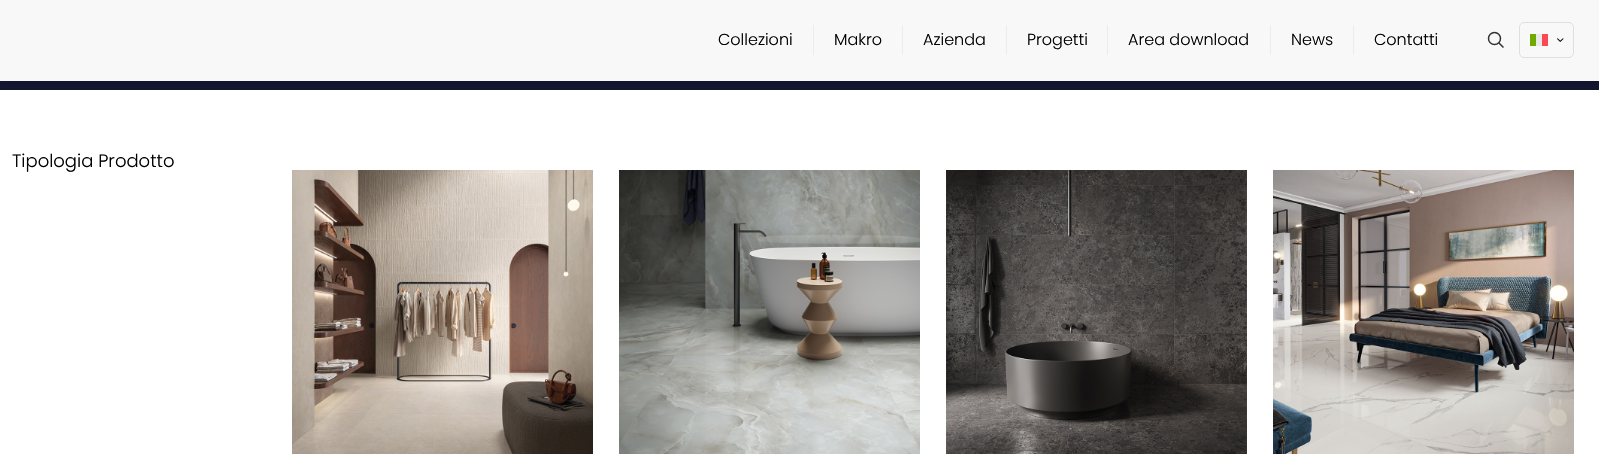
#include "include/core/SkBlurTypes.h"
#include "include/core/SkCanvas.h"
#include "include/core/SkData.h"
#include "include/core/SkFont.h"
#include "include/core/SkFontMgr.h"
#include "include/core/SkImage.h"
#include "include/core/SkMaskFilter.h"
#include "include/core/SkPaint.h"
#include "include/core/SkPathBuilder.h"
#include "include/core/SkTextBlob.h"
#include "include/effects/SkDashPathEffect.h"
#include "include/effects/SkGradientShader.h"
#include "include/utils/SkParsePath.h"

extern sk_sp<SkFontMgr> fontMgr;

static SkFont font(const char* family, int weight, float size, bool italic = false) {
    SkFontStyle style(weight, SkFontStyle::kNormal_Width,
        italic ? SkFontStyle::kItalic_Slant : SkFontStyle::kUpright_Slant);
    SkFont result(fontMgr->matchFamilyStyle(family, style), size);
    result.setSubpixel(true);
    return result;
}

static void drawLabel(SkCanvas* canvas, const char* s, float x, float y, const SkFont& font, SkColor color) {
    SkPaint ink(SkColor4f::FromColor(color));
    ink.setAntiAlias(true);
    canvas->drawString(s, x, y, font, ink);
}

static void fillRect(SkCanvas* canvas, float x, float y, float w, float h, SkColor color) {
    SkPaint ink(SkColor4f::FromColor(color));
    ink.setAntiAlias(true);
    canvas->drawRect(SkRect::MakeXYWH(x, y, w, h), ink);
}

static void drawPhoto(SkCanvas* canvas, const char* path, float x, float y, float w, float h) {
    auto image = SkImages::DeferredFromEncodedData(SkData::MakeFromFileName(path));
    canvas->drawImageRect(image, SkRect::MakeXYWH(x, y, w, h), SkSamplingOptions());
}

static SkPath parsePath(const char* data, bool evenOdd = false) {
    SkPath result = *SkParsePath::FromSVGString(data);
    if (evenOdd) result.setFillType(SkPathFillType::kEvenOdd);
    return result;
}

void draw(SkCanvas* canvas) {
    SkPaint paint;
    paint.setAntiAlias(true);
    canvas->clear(0xFFFFFFFF);
    fillRect(canvas, 0, 81, 1599, 9, 0xFF13162F);
    paint.setColor(0x1A010101);
    paint.setMaskFilter(SkMaskFilter::MakeBlur(kNormal_SkBlurStyle, 2.5f));
    canvas->drawRect(SkRect::MakeXYWH(0, 2, 1599, 81), paint);
    paint.setMaskFilter(nullptr);
    fillRect(canvas, 0, 0, 1599, 81, 0xFFF8F8F9);
    fillRect(canvas, 813, 25, 1, 30, 0xFFECECED);
    SkFont font1 = font("Poppins", 300, 16);
    drawLabel(canvas, "Collezioni", 718, 45, font1, 0xFF000000);
    fillRect(canvas, 902, 25, 1, 30, 0xFFECECED);
    drawLabel(canvas, "Makro", 834, 45, font1, 0xFF000000);
    fillRect(canvas, 1006, 25, 1, 30, 0xFFECECED);
    drawLabel(canvas, "Azienda", 923, 45, font1, 0xFF000000);
    fillRect(canvas, 1107, 25, 1, 30, 0xFFECECED);
    drawLabel(canvas, "Progetti", 1027, 45, font1, 0xFF000000);
    fillRect(canvas, 1270, 25, 1, 30, 0xFFECECED);
    drawLabel(canvas, "Area download", 1128, 45, font1, 0xFF000000);
    fillRect(canvas, 1353, 25, 1, 30, 0xFFECECED);
    drawLabel(canvas, "News", 1291, 45, font1, 0xFF000000);
    drawLabel(canvas, "Contatti", 1374, 45, font1, 0xFF000000);
    paint.setStroke(true);
    paint.setStrokeWidth(1.5f);
    paint.setColor(0xFF323233);
    canvas->drawCircle(1494.5f, 38.5f, 6, paint);
    canvas->drawPath(parsePath("M1498.5 42.5L1503.5 47.5"), paint);
    paint.setStrokeWidth(1);
    paint.setColor(0xFFDFDFE0);
    canvas->drawRoundRect(SkRect::MakeXYWH(1519.5f, 22.5f, 54, 35), 4.5f, 4.5f, paint);
    fillRect(canvas, 1536, 34, 6, 12, 0xFFE9E9EA);
    fillRect(canvas, 1542, 34, 6, 12, 0xFFF84954);
    fillRect(canvas, 1530, 34, 6, 12, 0xFF70AA01);
    drawPhoto(canvas, "assets/img1.png", 1557, 38, 7, 4);
    SkFont font2 = font("Poppins", 300, 18);
    drawLabel(canvas, "Tipologia Prodotto", 12, 167, font2, 0xFF000000);
    drawPhoto(canvas, "assets/img2.png", 292, 170, 301, 284);
    drawPhoto(canvas, "assets/img3.png", 619, 170, 301, 284);
    drawPhoto(canvas, "assets/img4.png", 946, 170, 301, 284);
    drawPhoto(canvas, "assets/img5.png", 1273, 170, 301, 284);
}
